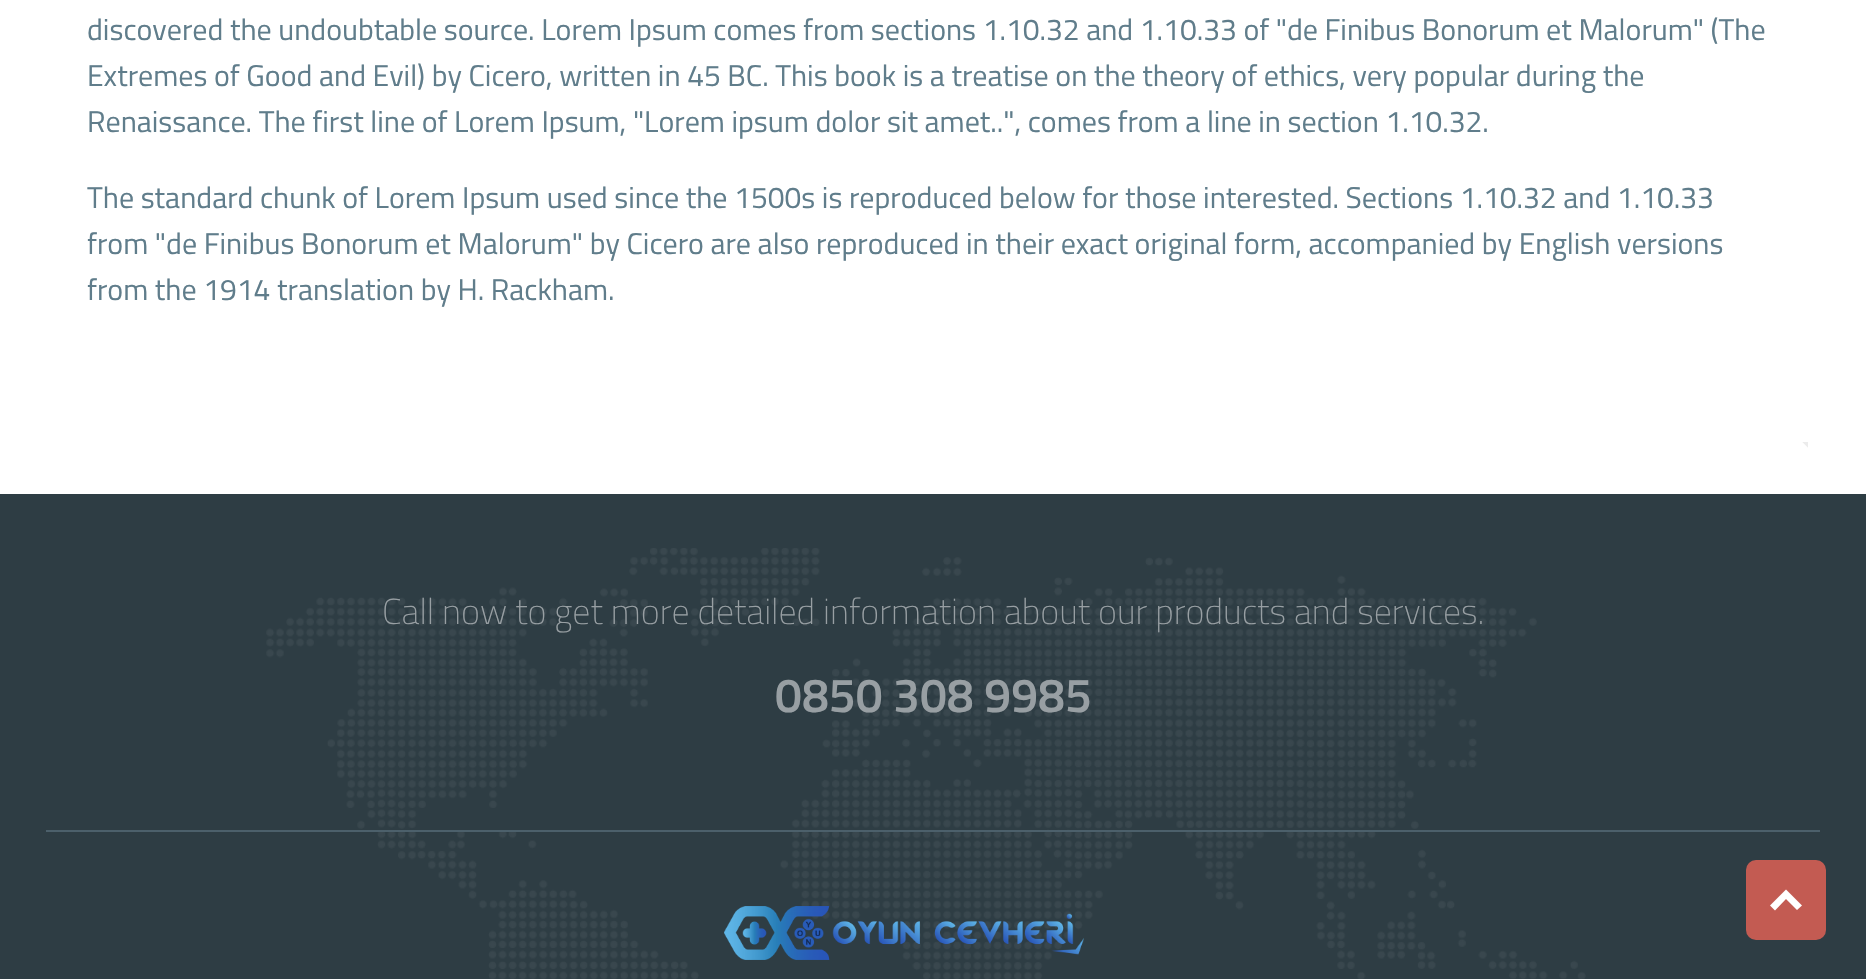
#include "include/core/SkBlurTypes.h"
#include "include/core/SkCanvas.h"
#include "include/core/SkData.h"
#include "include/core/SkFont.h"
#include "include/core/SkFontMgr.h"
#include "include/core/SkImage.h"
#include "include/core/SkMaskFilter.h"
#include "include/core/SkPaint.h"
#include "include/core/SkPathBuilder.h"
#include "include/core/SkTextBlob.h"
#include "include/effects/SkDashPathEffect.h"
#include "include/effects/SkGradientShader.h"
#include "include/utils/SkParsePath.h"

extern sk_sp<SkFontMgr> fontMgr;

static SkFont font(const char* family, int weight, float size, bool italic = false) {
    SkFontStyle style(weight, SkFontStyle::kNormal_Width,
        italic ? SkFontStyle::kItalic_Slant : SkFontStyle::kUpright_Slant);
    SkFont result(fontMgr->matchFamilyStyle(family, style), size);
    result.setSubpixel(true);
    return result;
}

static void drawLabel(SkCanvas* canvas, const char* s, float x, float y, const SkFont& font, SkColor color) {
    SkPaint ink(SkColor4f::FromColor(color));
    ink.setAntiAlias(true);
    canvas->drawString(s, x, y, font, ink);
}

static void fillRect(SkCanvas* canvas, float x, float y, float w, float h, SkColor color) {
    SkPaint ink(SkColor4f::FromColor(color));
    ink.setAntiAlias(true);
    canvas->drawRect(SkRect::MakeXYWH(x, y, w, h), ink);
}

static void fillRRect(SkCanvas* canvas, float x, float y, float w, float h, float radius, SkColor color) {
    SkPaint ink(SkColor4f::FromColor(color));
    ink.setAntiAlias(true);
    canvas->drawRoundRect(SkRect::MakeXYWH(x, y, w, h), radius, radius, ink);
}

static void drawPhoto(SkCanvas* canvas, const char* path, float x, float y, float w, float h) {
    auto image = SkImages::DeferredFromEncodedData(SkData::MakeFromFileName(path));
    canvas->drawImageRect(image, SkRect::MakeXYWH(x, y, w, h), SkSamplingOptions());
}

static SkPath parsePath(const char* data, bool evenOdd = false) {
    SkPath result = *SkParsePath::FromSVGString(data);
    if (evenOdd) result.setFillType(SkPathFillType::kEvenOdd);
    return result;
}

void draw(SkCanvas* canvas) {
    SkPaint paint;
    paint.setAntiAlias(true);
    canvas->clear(0xFFFFFFFF);
    SkFont font1 = font("Titillium Web", 400, 30);
    drawLabel(canvas, "discovered the undoubtable source. Lorem Ipsum comes from sections 1.10.32 and 1.10.33 of \"de Finibus Bonorum et Malorum\" (The", 87, 40, font1, 0xFF607D8B);
    drawLabel(canvas, "Extremes of Good and Evil) by Cicero, written in 45 BC. This book is a treatise on the theory of ethics, very popular during the", 87, 86, font1, 0xFF607D8B);
    drawLabel(canvas, "Renaissance. The first line of Lorem Ipsum, \"Lorem ipsum dolor sit amet..\", comes from a line in section 1.10.32.", 87, 132, font1, 0xFF607D8B);
    drawLabel(canvas, "The standard chunk of Lorem Ipsum used since the 1500s is reproduced below for those interested. Sections 1.10.32 and 1.10.33", 87, 208, font1, 0xFF607D8B);
    drawLabel(canvas, "from \"de Finibus Bonorum et Malorum\" by Cicero are also reproduced in their exact original form, accompanied by English versions", 87, 254, font1, 0xFF607D8B);
    drawLabel(canvas, "from the 1914 translation by H. Rackham.", 87, 300, font1, 0xFF607D8B);
    paint.setColor(0xFFECECEC);
    canvas->drawPath(parsePath("M1808 442V448L1802 442Z"), paint);
    paint.setColor(0xFFFFFFFF);
    canvas->drawPath(parsePath("M1808 448H46V442H1802Z"), paint);
    fillRect(canvas, 0, 494, 1866, 485, 0xFF2E3D44);
    drawPhoto(canvas, "assets/img1.png", 266, 548, 1320, 431);
    SkFont font2 = font("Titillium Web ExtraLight", 200, 36);
    drawLabel(canvas, "Call now to get more detailed information about our products and services.", 382, 624, font2, 0xFF989FA3);
    SkFont font3 = font("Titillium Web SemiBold", 600, 48);
    drawLabel(canvas, "0850 308 9985", 775, 712, font3, 0xFF989FA3);
    fillRect(canvas, 46, 830, 1774, 2, 0xFF4C606B);
    drawPhoto(canvas, "assets/img2.png", 724, 906, 360, 54);
    fillRRect(canvas, 1746, 860, 80, 80, 10, 0xFFC35B52);
    canvas->drawPath(parsePath("M1786 889.5L1802 905.5L1797 910L1786 899L1775 910.5L1770 905.5Z"), paint);
}
